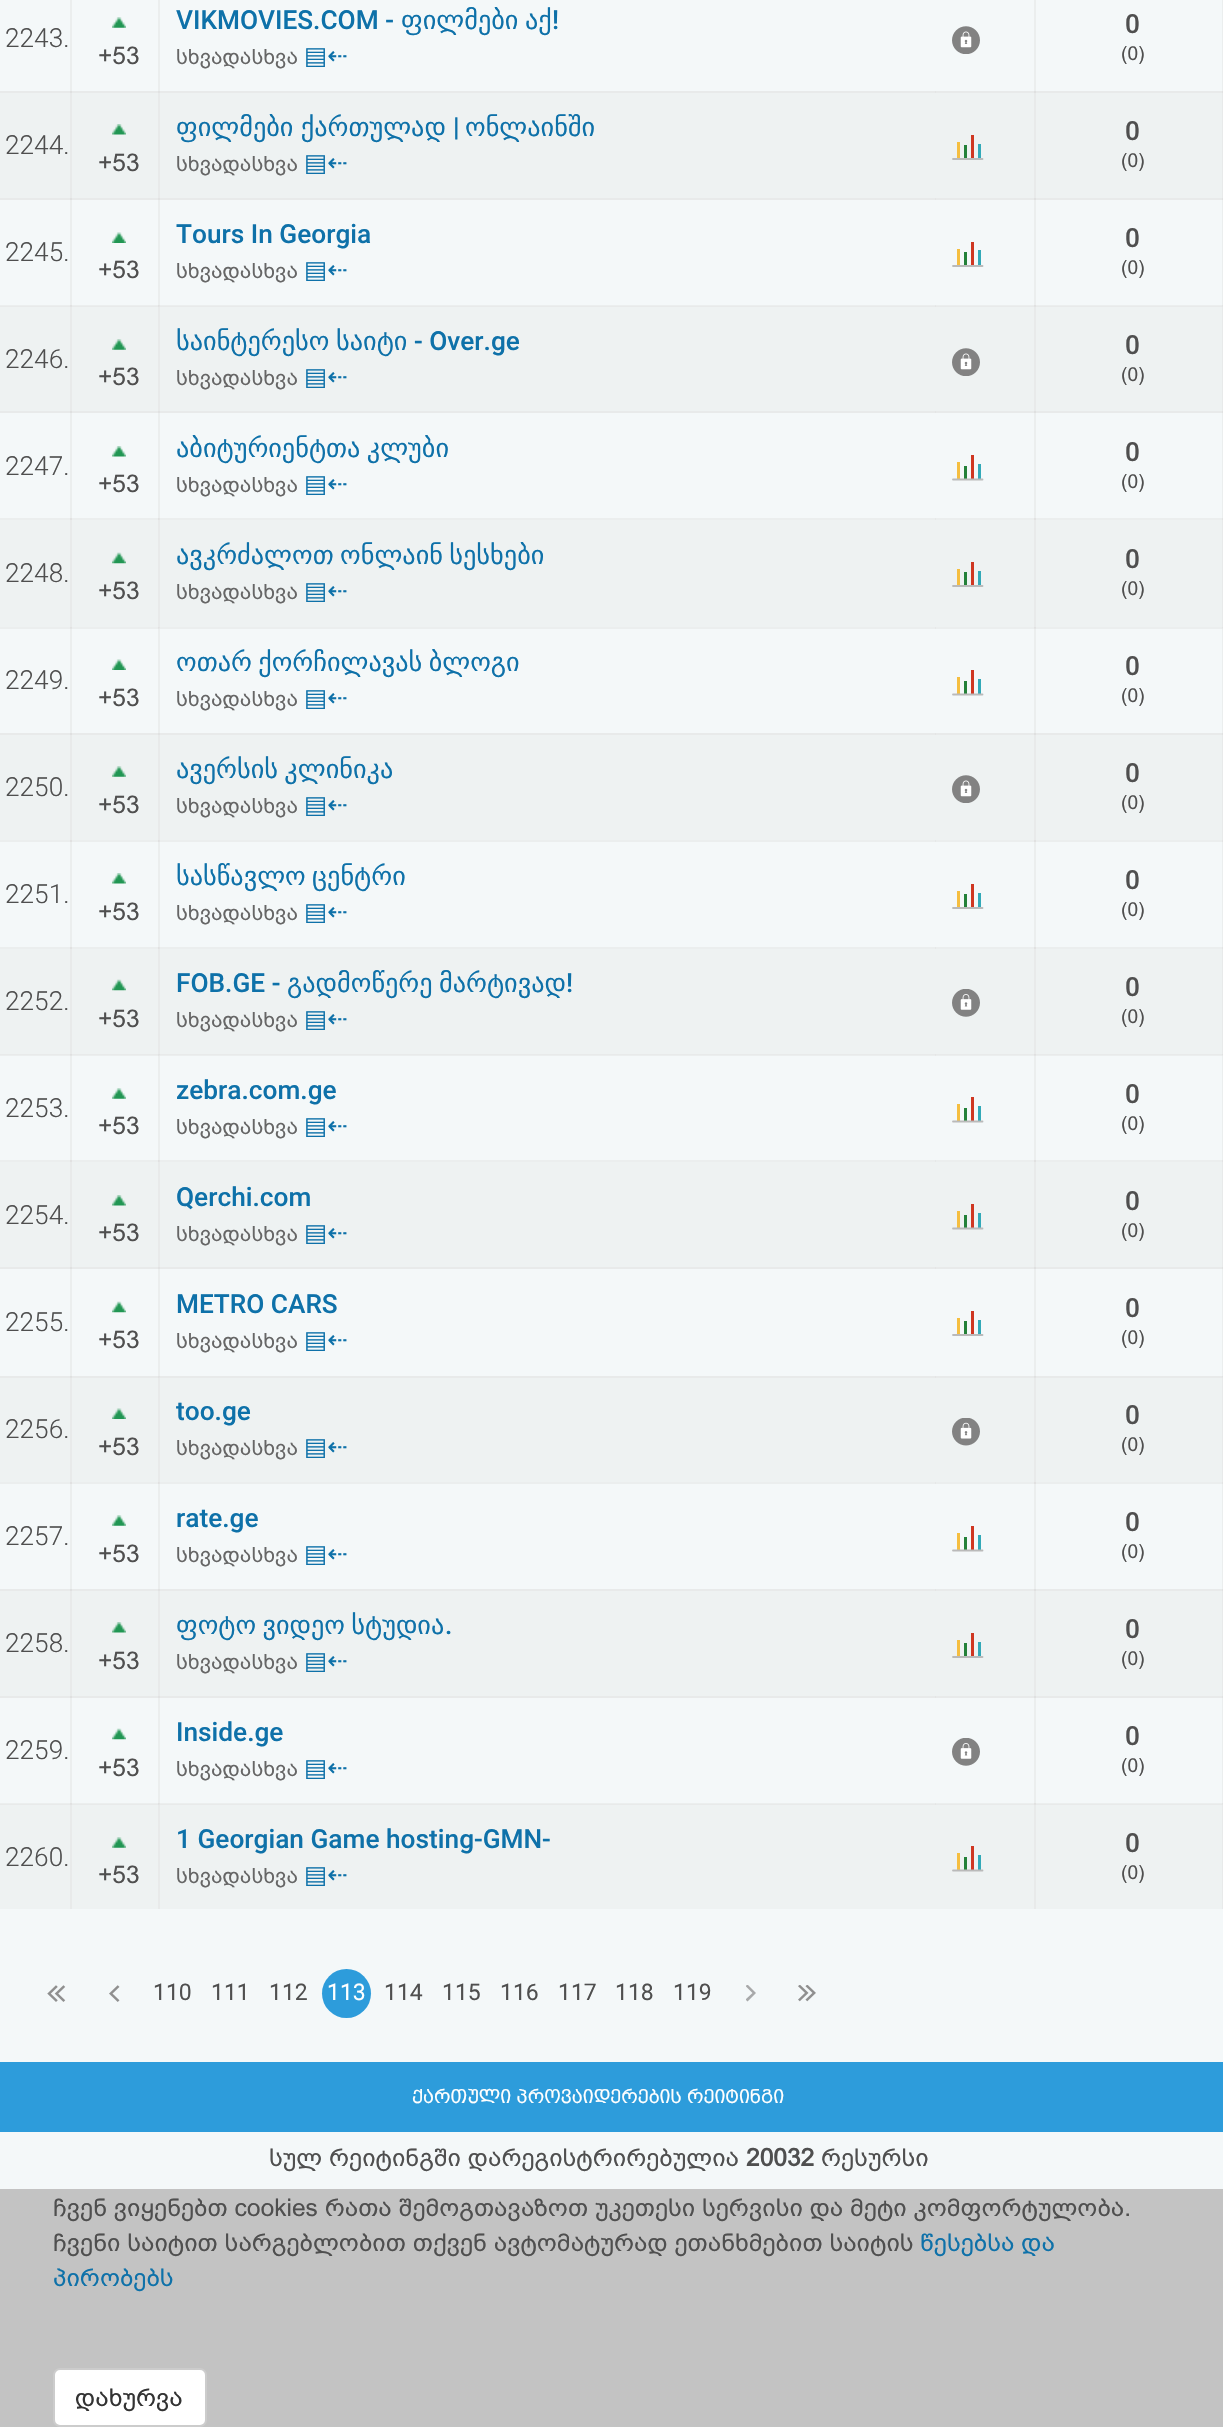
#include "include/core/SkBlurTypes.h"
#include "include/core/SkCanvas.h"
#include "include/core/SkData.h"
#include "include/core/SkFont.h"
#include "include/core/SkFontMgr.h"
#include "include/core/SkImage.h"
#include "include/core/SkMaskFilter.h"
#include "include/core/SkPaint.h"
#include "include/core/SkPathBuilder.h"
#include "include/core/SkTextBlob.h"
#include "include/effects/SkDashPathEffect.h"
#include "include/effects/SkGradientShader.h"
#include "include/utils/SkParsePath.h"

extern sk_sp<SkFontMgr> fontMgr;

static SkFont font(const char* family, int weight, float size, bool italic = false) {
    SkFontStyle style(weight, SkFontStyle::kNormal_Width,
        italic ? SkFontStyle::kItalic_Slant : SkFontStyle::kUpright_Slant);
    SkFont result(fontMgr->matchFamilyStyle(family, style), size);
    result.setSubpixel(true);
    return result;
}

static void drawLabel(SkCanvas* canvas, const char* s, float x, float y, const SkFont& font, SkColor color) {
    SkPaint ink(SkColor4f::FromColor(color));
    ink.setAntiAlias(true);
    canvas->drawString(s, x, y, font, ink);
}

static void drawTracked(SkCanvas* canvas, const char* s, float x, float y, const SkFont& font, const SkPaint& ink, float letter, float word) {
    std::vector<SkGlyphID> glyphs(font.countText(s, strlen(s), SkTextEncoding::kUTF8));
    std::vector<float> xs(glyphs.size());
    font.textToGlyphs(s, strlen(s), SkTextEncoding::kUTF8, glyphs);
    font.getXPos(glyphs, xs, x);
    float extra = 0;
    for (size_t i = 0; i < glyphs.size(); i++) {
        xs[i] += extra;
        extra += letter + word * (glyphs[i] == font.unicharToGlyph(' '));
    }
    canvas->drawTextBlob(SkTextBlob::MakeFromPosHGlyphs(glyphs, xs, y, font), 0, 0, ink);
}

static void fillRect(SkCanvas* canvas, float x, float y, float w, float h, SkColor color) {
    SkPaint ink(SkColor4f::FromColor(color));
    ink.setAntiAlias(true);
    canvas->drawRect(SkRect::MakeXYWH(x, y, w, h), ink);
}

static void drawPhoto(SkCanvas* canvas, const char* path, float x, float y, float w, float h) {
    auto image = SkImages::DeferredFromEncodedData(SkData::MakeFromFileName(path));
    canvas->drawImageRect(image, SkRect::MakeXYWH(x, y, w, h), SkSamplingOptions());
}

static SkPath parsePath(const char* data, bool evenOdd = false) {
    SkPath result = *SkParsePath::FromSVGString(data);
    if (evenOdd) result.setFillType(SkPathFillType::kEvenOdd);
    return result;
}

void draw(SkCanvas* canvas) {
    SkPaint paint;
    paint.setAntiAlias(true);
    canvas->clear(0xFFF4F8F9);
    fillRect(canvas, 70, 0, 2, 93, 0xFFEBEEEE);
    fillRect(canvas, 158, 0, 2, 93, 0xFFEBEEEE);
    fillRect(canvas, 1034, 0, 2, 93, 0xFFEBEEEE);
    fillRect(canvas, 1222, 0, 1, 93, 0xFFEBEEEE);
    fillRect(canvas, 70, 198, 2, 108, 0xFFEBEEEE);
    fillRect(canvas, 158, 198, 2, 108, 0xFFEBEEEE);
    fillRect(canvas, 1034, 198, 2, 108, 0xFFEBEEEE);
    fillRect(canvas, 1222, 198, 1, 108, 0xFFEBEEEE);
    fillRect(canvas, 0, 305, 1223, 1, 0xFFEBEEEE);
    fillRect(canvas, 70, 305, 2, 1, 0xFFE1E1E1);
    fillRect(canvas, 158, 305, 2, 1, 0xFFE3E4E4);
    fillRect(canvas, 158, 305, 1, 1, 0xFFE1E1E1);
    fillRect(canvas, 935, 305, 1, 2, 0xFFE6E8E8);
    fillRect(canvas, 1034, 305, 2, 1, 0xFFE1E1E1);
    fillRect(canvas, 1222, 305, 1, 1, 0xFFE3E4E4);
    fillRect(canvas, 70, 411, 2, 109, 0xFFEBEEEE);
    fillRect(canvas, 158, 411, 2, 109, 0xFFEBEEEE);
    fillRect(canvas, 1034, 411, 2, 109, 0xFFEBEEEE);
    fillRect(canvas, 1222, 411, 1, 109, 0xFFEBEEEE);
    fillRect(canvas, 0, 518, 1036, 2, 0xFFEBEEEE);
    fillRect(canvas, 70, 518, 2, 2, 0xFFE1E1E1);
    fillRect(canvas, 158, 518, 2, 2, 0xFFE3E4E4);
    fillRect(canvas, 158, 518, 1, 2, 0xFFE1E1E1);
    fillRect(canvas, 935, 518, 1, 2, 0xFFE6E8E8);
    fillRect(canvas, 70, 627, 2, 108, 0xFFEBEEEE);
    fillRect(canvas, 0, 627, 72, 2, 0xFFEBEEEE);
    fillRect(canvas, 158, 627, 2, 108, 0xFFEBEEEE);
    fillRect(canvas, 70, 627, 866, 2, 0xFFEBEEEE);
    fillRect(canvas, 70, 628, 2, 1, 0xFFE3E4E4);
    fillRect(canvas, 70, 627, 2, 1, 0xFFE1E1E1);
    fillRect(canvas, 158, 628, 2, 1, 0xFFE6E8E8);
    fillRect(canvas, 158, 627, 2, 1, 0xFFE3E4E4);
    fillRect(canvas, 158, 627, 1, 2, 0xFFE3E4E4);
    fillRect(canvas, 158, 627, 1, 1, 0xFFE1E1E1);
    fillRect(canvas, 1034, 627, 2, 108, 0xFFEBEEEE);
    fillRect(canvas, 935, 627, 101, 2, 0xFFEBEEEE);
    fillRect(canvas, 935, 627, 1, 2, 0xFFE6E8E8);
    fillRect(canvas, 1222, 627, 1, 108, 0xFFEBEEEE);
    fillRect(canvas, 70, 840, 2, 109, 0xFFEBEEEE);
    fillRect(canvas, 0, 840, 72, 2, 0xFFEBEEEE);
    fillRect(canvas, 158, 840, 2, 109, 0xFFEBEEEE);
    fillRect(canvas, 70, 840, 866, 2, 0xFFEBEEEE);
    fillRect(canvas, 70, 840, 2, 2, 0xFFE1E1E1);
    fillRect(canvas, 158, 840, 2, 2, 0xFFE3E4E4);
    fillRect(canvas, 158, 840, 1, 2, 0xFFE1E1E1);
    fillRect(canvas, 1034, 840, 2, 109, 0xFFEBEEEE);
    fillRect(canvas, 935, 840, 101, 2, 0xFFEBEEEE);
    fillRect(canvas, 935, 840, 1, 2, 0xFFE6E8E8);
    fillRect(canvas, 1222, 840, 1, 109, 0xFFEBEEEE);
    fillRect(canvas, 0, 947, 1223, 2, 0xFFEBEEEE);
    fillRect(canvas, 70, 947, 2, 2, 0xFFE1E1E1);
    fillRect(canvas, 158, 947, 2, 2, 0xFFE3E4E4);
    fillRect(canvas, 158, 947, 1, 2, 0xFFE1E1E1);
    fillRect(canvas, 935, 947, 1, 2, 0xFFE6E8E8);
    fillRect(canvas, 70, 1054, 2, 108, 0xFFEBEEEE);
    fillRect(canvas, 0, 1055, 72, 1, 0xFFEBEEEE);
    fillRect(canvas, 158, 1054, 2, 108, 0xFFEBEEEE);
    fillRect(canvas, 70, 1055, 866, 1, 0xFFEBEEEE);
    fillRect(canvas, 70, 1055, 2, 1, 0xFFE3E4E4);
    fillRect(canvas, 158, 1055, 2, 1, 0xFFE6E8E8);
    fillRect(canvas, 158, 1054, 1, 2, 0xFFE3E4E4);
    fillRect(canvas, 1034, 1054, 2, 108, 0xFFEBEEEE);
    fillRect(canvas, 935, 1055, 101, 1, 0xFFEBEEEE);
    fillRect(canvas, 935, 1054, 1, 2, 0xFFE6E8E8);
    fillRect(canvas, 1222, 1054, 1, 108, 0xFFEBEEEE);
    fillRect(canvas, 1034, 1055, 189, 1, 0xFFEBEEEE);
    fillRect(canvas, 1034, 1055, 2, 1, 0xFFE3E4E4);
    fillRect(canvas, 1222, 1054, 1, 2, 0xFFE6E8E8);
    fillRect(canvas, 0, 1160, 1223, 2, 0xFFEBEEEE);
    fillRect(canvas, 70, 1160, 2, 2, 0xFFE1E1E1);
    fillRect(canvas, 158, 1160, 2, 2, 0xFFE3E4E4);
    fillRect(canvas, 158, 1160, 1, 2, 0xFFE1E1E1);
    fillRect(canvas, 935, 1160, 1, 2, 0xFFE6E8E8);
    fillRect(canvas, 70, 1267, 2, 110, 0xFFEBEEEE);
    fillRect(canvas, 158, 1267, 2, 110, 0xFFEBEEEE);
    fillRect(canvas, 1034, 1267, 2, 110, 0xFFEBEEEE);
    fillRect(canvas, 1222, 1267, 1, 110, 0xFFEBEEEE);
    fillRect(canvas, 70, 1482, 2, 109, 0xFFEBEEEE);
    fillRect(canvas, 0, 1482, 72, 2, 0xFFEBEEEE);
    fillRect(canvas, 158, 1482, 2, 109, 0xFFEBEEEE);
    fillRect(canvas, 70, 1482, 866, 2, 0xFFEBEEEE);
    fillRect(canvas, 70, 1482, 2, 2, 0xFFE1E1E1);
    fillRect(canvas, 158, 1482, 2, 2, 0xFFE3E4E4);
    fillRect(canvas, 158, 1482, 1, 2, 0xFFE1E1E1);
    fillRect(canvas, 1034, 1482, 2, 109, 0xFFEBEEEE);
    fillRect(canvas, 935, 1482, 101, 2, 0xFFEBEEEE);
    fillRect(canvas, 935, 1482, 1, 2, 0xFFE6E8E8);
    fillRect(canvas, 1222, 1482, 1, 109, 0xFFEBEEEE);
    fillRect(canvas, 70, 1696, 2, 108, 0xFFEBEEEE);
    fillRect(canvas, 158, 1696, 2, 108, 0xFFEBEEEE);
    fillRect(canvas, 1034, 1696, 2, 108, 0xFFEBEEEE);
    fillRect(canvas, 1222, 1696, 1, 108, 0xFFEBEEEE);
    fillRect(canvas, 0, 1803, 1223, 1, 0xFFEBEEEE);
    fillRect(canvas, 70, 1803, 2, 1, 0xFFE1E1E1);
    fillRect(canvas, 158, 1803, 2, 1, 0xFFE3E4E4);
    fillRect(canvas, 158, 1803, 1, 1, 0xFFE1E1E1);
    fillRect(canvas, 935, 1803, 1, 2, 0xFFE6E8E8);
    fillRect(canvas, 1034, 1803, 2, 1, 0xFFE1E1E1);
    fillRect(canvas, 1222, 1803, 1, 1, 0xFFE3E4E4);
    SkFont font1 = font("Roboto", 300, 26.25f);
    drawLabel(canvas, "2243.", 5, 47, font1, 0xFF4F4F4F);
    SkFont font2 = font("Roboto", 500, 26.25f);
    drawLabel(canvas, "VIKMOVIES.COM -", 176, 29, font2, 0xFF0E71A9);
    SkFont font3 = font("DejaVu Sans", 400, 26.25f);
    drawLabel(canvas, "ფილმები", 401, 29, font3, 0xFF0E71A9);
    drawLabel(canvas, "აქ", 525, 29, font3, 0xFF0E71A9);
    drawLabel(canvas, "!", 552, 29, font2, 0xFF0E71A9);
    SkFont font4 = font("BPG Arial", 400, 21);
    drawLabel(canvas, "სხვადასხვა", 176, 64, font4, 0xFF666666);
    SkFont font5 = font("DejaVu Sans", 400, 24.5f);
    drawLabel(canvas, "▤⇠", 304, 64, font5, 0xFF0E71A9);
    drawPhoto(canvas, "assets/img1.png", 952, 26, 28, 28);
    drawLabel(canvas, "0", 1125, 33, font2, 0xFF4F4F4F);
    SkFont font6 = font("BPG Arial", 400, 19.25f);
    drawLabel(canvas, "(0)", 1121, 60, font6, 0xFF4F4F4F);
    drawPhoto(canvas, "assets/img2.png", 112, 17, 14, 11);
    SkFont font7 = font("BPG Arial", 400, 24.5f);
    drawLabel(canvas, "+53", 98, 64, font7, 0xFF4F4F4F);
    fillRect(canvas, 0, 93, 1222, 105, 0xFFEEF2F2);
    fillRect(canvas, 70, 91, 2, 109, 0xFFE8EAEA);
    fillRect(canvas, 0, 91, 72, 2, 0xFFE8EAEA);
    fillRect(canvas, 158, 91, 2, 109, 0xFFE8EAEA);
    fillRect(canvas, 70, 91, 866, 2, 0xFFE8EAEA);
    fillRect(canvas, 70, 91, 2, 2, 0xFFDFE0E0);
    fillRect(canvas, 158, 91, 2, 2, 0xFFE1E2E2);
    fillRect(canvas, 1034, 91, 2, 109, 0xFFE8EAEA);
    fillRect(canvas, 935, 91, 101, 2, 0xFFE8EAEA);
    fillRect(canvas, 935, 91, 1, 2, 0xFFE4E5E5);
    fillRect(canvas, 1222, 91, 1, 109, 0xFFE8EAEA);
    fillRect(canvas, 0, 198, 1223, 2, 0xFFE8EAEA);
    fillRect(canvas, 70, 198, 2, 2, 0xFFDFE0E0);
    fillRect(canvas, 158, 198, 2, 2, 0xFFE1E2E2);
    fillRect(canvas, 935, 198, 1, 2, 0xFFE4E5E5);
    drawLabel(canvas, "2244.", 5, 154, font1, 0xFF4F4F4F);
    paint.setColor(0xFF0E71A9);
    drawTracked(canvas, "ფილმები ქართულად", 176, 136, font3, paint, 0, -1);
    drawLabel(canvas, "|", 453, 136, font2, 0xFF0E71A9);
    drawLabel(canvas, "ონლაინში", 465, 136, font3, 0xFF0E71A9);
    drawLabel(canvas, "სხვადასხვა", 176, 171, font4, 0xFF666666);
    drawLabel(canvas, "▤⇠", 304, 171, font5, 0xFF0E71A9);
    fillRect(canvas, 957, 142, 3, 17, 0xFFF5BE40);
    fillRect(canvas, 964, 145, 3, 14, 0xFF248139);
    fillRect(canvas, 971, 135, 3, 24, 0xFFCF3722);
    fillRect(canvas, 978, 144, 3, 15, 0xFF32A9B8);
    paint.setStroke(true);
    paint.setStrokeWidth(1.8f);
    paint.setStrokeCap(SkPaint::kRound_Cap);
    paint.setStrokeJoin(SkPaint::kRound_Join);
    paint.setColor(0xFFBABABA);
    canvas->drawPath(parsePath("M953 159H982.5"), paint);
    fillRect(canvas, 1034, 91, 189, 2, 0xFFE8EAEA);
    fillRect(canvas, 1034, 91, 2, 2, 0xFFDFE0E0);
    fillRect(canvas, 1222, 91, 1, 2, 0xFFE1E2E2);
    drawLabel(canvas, "0", 1125, 140, font2, 0xFF4F4F4F);
    drawLabel(canvas, "(0)", 1121, 167, font6, 0xFF4F4F4F);
    drawPhoto(canvas, "assets/img3.png", 112, 124, 14, 11);
    drawLabel(canvas, "+53", 98, 171, font7, 0xFF4F4F4F);
    drawLabel(canvas, "2245.", 5, 261, font1, 0xFF4F4F4F);
    drawLabel(canvas, "Tours In Georgia", 176, 243, font2, 0xFF0E71A9);
    drawLabel(canvas, "სხვადასხვა", 176, 278, font4, 0xFF666666);
    drawLabel(canvas, "▤⇠", 304, 278, font5, 0xFF0E71A9);
    fillRect(canvas, 957, 249, 3, 17, 0xFFF5BE40);
    fillRect(canvas, 964, 252, 3, 14, 0xFF248139);
    fillRect(canvas, 971, 242, 3, 24, 0xFFCF3722);
    fillRect(canvas, 978, 250, 3, 16, 0xFF32A9B8);
    canvas->drawPath(parsePath("M953 266H982.5"), paint);
    fillRect(canvas, 1034, 198, 2, 2, 0xFFDFE0E0);
    fillRect(canvas, 1222, 198, 1, 2, 0xFFE1E2E2);
    drawLabel(canvas, "0", 1125, 247, font2, 0xFF4F4F4F);
    drawLabel(canvas, "(0)", 1121, 274, font6, 0xFF4F4F4F);
    drawPhoto(canvas, "assets/img4.png", 112, 232, 14, 11);
    drawLabel(canvas, "+53", 98, 278, font7, 0xFF4F4F4F);
    fillRect(canvas, 0, 307, 1222, 104, 0xFFEEF2F2);
    fillRect(canvas, 70, 306, 2, 107, 0xFFE8EAEA);
    fillRect(canvas, 0, 306, 72, 1, 0xFFE8EAEA);
    fillRect(canvas, 158, 306, 2, 107, 0xFFE8EAEA);
    fillRect(canvas, 70, 306, 866, 1, 0xFFE8EAEA);
    fillRect(canvas, 70, 306, 2, 1, 0xFFE1E2E2);
    fillRect(canvas, 158, 306, 2, 1, 0xFFE4E5E5);
    fillRect(canvas, 158, 306, 1, 1, 0xFFE1E2E2);
    fillRect(canvas, 1034, 306, 2, 107, 0xFFE8EAEA);
    fillRect(canvas, 935, 306, 101, 1, 0xFFE8EAEA);
    fillRect(canvas, 935, 306, 1, 1, 0xFFE4E5E5);
    fillRect(canvas, 1222, 306, 1, 107, 0xFFE8EAEA);
    fillRect(canvas, 1034, 306, 189, 1, 0xFFE8EAEA);
    fillRect(canvas, 1034, 306, 2, 1, 0xFFE1E2E2);
    fillRect(canvas, 1222, 306, 1, 1, 0xFFE4E5E5);
    fillRect(canvas, 0, 411, 1223, 2, 0xFFE8EAEA);
    fillRect(canvas, 70, 411, 2, 2, 0xFFDFE0E0);
    fillRect(canvas, 158, 411, 2, 2, 0xFFE1E2E2);
    fillRect(canvas, 935, 411, 1, 2, 0xFFE4E5E5);
    drawLabel(canvas, "2246.", 5, 368, font1, 0xFF4F4F4F);
    drawLabel(canvas, "საინტერესო", 176, 350, font3, 0xFF0E71A9);
    drawLabel(canvas, "საიტი", 336, 350, font3, 0xFF0E71A9);
    drawLabel(canvas, "- Over.ge", 414, 350, font2, 0xFF0E71A9);
    drawLabel(canvas, "სხვადასხვა", 176, 385, font4, 0xFF666666);
    drawLabel(canvas, "▤⇠", 304, 385, font5, 0xFF0E71A9);
    drawPhoto(canvas, "assets/img5.png", 952, 348, 28, 28);
    drawLabel(canvas, "0", 1125, 354, font2, 0xFF4F4F4F);
    drawLabel(canvas, "(0)", 1121, 381, font6, 0xFF4F4F4F);
    drawPhoto(canvas, "assets/img6.png", 112, 339, 14, 11);
    drawLabel(canvas, "+53", 98, 385, font7, 0xFF4F4F4F);
    drawLabel(canvas, "2247.", 5, 475, font1, 0xFF4F4F4F);
    paint.setStroke(false);
    paint.setColor(0xFF0E71A9);
    drawTracked(canvas, "აბიტურიენტთა კლუბი", 176, 457, font3, paint, 0, -2);
    drawLabel(canvas, "სხვადასხვა", 176, 492, font4, 0xFF666666);
    drawLabel(canvas, "▤⇠", 304, 492, font5, 0xFF0E71A9);
    fillRect(canvas, 957, 462, 3, 18, 0xFFF5BE40);
    fillRect(canvas, 964, 466, 3, 14, 0xFF248139);
    fillRect(canvas, 971, 455, 3, 25, 0xFFCF3722);
    fillRect(canvas, 978, 464, 3, 16, 0xFF32A9B8);
    paint.setStroke(true);
    paint.setColor(0xFFBABABA);
    canvas->drawPath(parsePath("M953 479.5H982.5"), paint);
    fillRect(canvas, 1034, 411, 2, 2, 0xFFDFE0E0);
    fillRect(canvas, 1222, 411, 1, 2, 0xFFE1E2E2);
    drawLabel(canvas, "0", 1125, 461, font2, 0xFF4F4F4F);
    drawLabel(canvas, "(0)", 1121, 488, font6, 0xFF4F4F4F);
    drawPhoto(canvas, "assets/img7.png", 112, 446, 14, 11);
    drawLabel(canvas, "+53", 98, 492, font7, 0xFF4F4F4F);
    fillRect(canvas, 0, 520, 1222, 107, 0xFFEEF2F2);
    fillRect(canvas, 70, 520, 2, 107, 0xFFE8EAEA);
    fillRect(canvas, 158, 520, 2, 107, 0xFFE8EAEA);
    fillRect(canvas, 1034, 520, 2, 107, 0xFFE8EAEA);
    fillRect(canvas, 1222, 520, 1, 107, 0xFFE8EAEA);
    drawLabel(canvas, "2248.", 5, 582, font1, 0xFF4F4F4F);
    paint.setStroke(false);
    paint.setColor(0xFF0E71A9);
    drawTracked(canvas, "ავკრძალოთ ონლაინ სესხები", 176, 564, font3, paint, 0, -2);
    drawLabel(canvas, "სხვადასხვა", 176, 599, font4, 0xFF666666);
    drawLabel(canvas, "▤⇠", 304, 599, font5, 0xFF0E71A9);
    fillRect(canvas, 957, 569, 3, 17, 0xFFF5BE40);
    fillRect(canvas, 964, 572, 3, 14, 0xFF248139);
    fillRect(canvas, 971, 562, 3, 24, 0xFFCF3722);
    fillRect(canvas, 978, 571, 3, 15, 0xFF32A9B8);
    paint.setStroke(true);
    paint.setColor(0xFFBABABA);
    canvas->drawPath(parsePath("M953 586H982.5"), paint);
    fillRect(canvas, 1034, 518, 189, 2, 0xFFEBEEEE);
    fillRect(canvas, 1034, 518, 2, 2, 0xFFE1E1E1);
    fillRect(canvas, 1222, 518, 1, 2, 0xFFE3E4E4);
    drawLabel(canvas, "0", 1125, 568, font2, 0xFF4F4F4F);
    drawLabel(canvas, "(0)", 1121, 595, font6, 0xFF4F4F4F);
    drawPhoto(canvas, "assets/img8.png", 112, 552, 14, 12);
    drawLabel(canvas, "+53", 98, 599, font7, 0xFF4F4F4F);
    drawLabel(canvas, "2249.", 5, 689, font1, 0xFF4F4F4F);
    drawPhoto(canvas, "assets/img4.png", 112, 659, 14, 11);
    drawLabel(canvas, "+53", 98, 706, font7, 0xFF4F4F4F);
    paint.setStroke(false);
    paint.setColor(0xFF0E71A9);
    drawTracked(canvas, "ოთარ ქორჩილავას ბლოგი", 176, 671, font3, paint, 0, -2);
    drawLabel(canvas, "სხვადასხვა", 176, 706, font4, 0xFF666666);
    drawLabel(canvas, "▤⇠", 304, 706, font5, 0xFF0E71A9);
    fillRect(canvas, 957, 677, 3, 18, 0xFFF5BE40);
    fillRect(canvas, 964, 681, 3, 14, 0xFF248139);
    fillRect(canvas, 971, 670, 3, 25, 0xFFCF3722);
    fillRect(canvas, 978, 679, 3, 16, 0xFF32A9B8);
    paint.setStroke(true);
    paint.setColor(0xFFBABABA);
    canvas->drawPath(parsePath("M953 694.5H982.5"), paint);
    fillRect(canvas, 1034, 627, 189, 2, 0xFFEBEEEE);
    fillRect(canvas, 1034, 628, 2, 1, 0xFFE3E4E4);
    fillRect(canvas, 1034, 627, 2, 1, 0xFFE1E1E1);
    fillRect(canvas, 1222, 627, 1, 2, 0xFFE6E8E8);
    fillRect(canvas, 1222, 627, 1, 1, 0xFFE3E4E4);
    drawLabel(canvas, "0", 1125, 675, font2, 0xFF4F4F4F);
    drawLabel(canvas, "(0)", 1121, 702, font6, 0xFF4F4F4F);
    fillRect(canvas, 0, 735, 1222, 105, 0xFFEEF2F2);
    fillRect(canvas, 70, 733, 2, 107, 0xFFE8EAEA);
    fillRect(canvas, 0, 733, 72, 2, 0xFFE8EAEA);
    fillRect(canvas, 158, 733, 2, 107, 0xFFE8EAEA);
    fillRect(canvas, 70, 733, 866, 2, 0xFFE8EAEA);
    fillRect(canvas, 70, 733, 2, 2, 0xFFDFE0E0);
    fillRect(canvas, 158, 733, 2, 2, 0xFFE1E2E2);
    fillRect(canvas, 1034, 733, 2, 107, 0xFFE8EAEA);
    fillRect(canvas, 935, 733, 101, 2, 0xFFE8EAEA);
    fillRect(canvas, 935, 733, 1, 2, 0xFFE4E5E5);
    fillRect(canvas, 1222, 733, 1, 107, 0xFFE8EAEA);
    drawLabel(canvas, "2250.", 5, 796, font1, 0xFF4F4F4F);
    paint.setStroke(false);
    paint.setColor(0xFF0E71A9);
    drawTracked(canvas, "ავერსის კლინიკა", 176, 778, font3, paint, 0, -2);
    drawLabel(canvas, "სხვადასხვა", 176, 813, font4, 0xFF666666);
    drawLabel(canvas, "▤⇠", 304, 813, font5, 0xFF0E71A9);
    drawPhoto(canvas, "assets/img5.png", 952, 775, 28, 28);
    fillRect(canvas, 1034, 733, 189, 2, 0xFFE8EAEA);
    fillRect(canvas, 1034, 733, 2, 2, 0xFFDFE0E0);
    fillRect(canvas, 1222, 733, 1, 2, 0xFFE1E2E2);
    drawLabel(canvas, "0", 1125, 782, font2, 0xFF4F4F4F);
    drawLabel(canvas, "(0)", 1121, 809, font6, 0xFF4F4F4F);
    drawPhoto(canvas, "assets/img6.png", 112, 766, 14, 11);
    drawLabel(canvas, "+53", 98, 813, font7, 0xFF4F4F4F);
    drawLabel(canvas, "2251.", 5, 903, font1, 0xFF4F4F4F);
    drawTracked(canvas, "სასწავლო ცენტრი", 176, 885, font3, paint, 0, -2);
    drawLabel(canvas, "სხვადასხვა", 176, 920, font4, 0xFF666666);
    drawLabel(canvas, "▤⇠", 304, 920, font5, 0xFF0E71A9);
    fillRect(canvas, 957, 891, 3, 17, 0xFFF5BE40);
    fillRect(canvas, 964, 894, 3, 14, 0xFF248139);
    fillRect(canvas, 971, 884, 3, 24, 0xFFCF3722);
    fillRect(canvas, 978, 893, 3, 15, 0xFF32A9B8);
    paint.setStroke(true);
    paint.setColor(0xFFBABABA);
    canvas->drawPath(parsePath("M953 908H982.5"), paint);
    fillRect(canvas, 1034, 840, 189, 2, 0xFFEBEEEE);
    fillRect(canvas, 1034, 840, 2, 2, 0xFFE1E1E1);
    fillRect(canvas, 1222, 840, 1, 2, 0xFFE3E4E4);
    drawLabel(canvas, "0", 1125, 889, font2, 0xFF4F4F4F);
    drawLabel(canvas, "(0)", 1121, 916, font6, 0xFF4F4F4F);
    drawPhoto(canvas, "assets/img7.png", 112, 873, 14, 11);
    drawLabel(canvas, "+53", 98, 920, font7, 0xFF4F4F4F);
    fillRect(canvas, 0, 949, 1222, 105, 0xFFEEF2F2);
    fillRect(canvas, 70, 949, 2, 106, 0xFFE8EAEA);
    fillRect(canvas, 158, 949, 2, 106, 0xFFE8EAEA);
    fillRect(canvas, 1034, 949, 2, 106, 0xFFE8EAEA);
    fillRect(canvas, 1222, 949, 1, 106, 0xFFE8EAEA);
    fillRect(canvas, 0, 1054, 1223, 1, 0xFFE8EAEA);
    fillRect(canvas, 70, 1054, 2, 1, 0xFFDFE0E0);
    fillRect(canvas, 158, 1054, 2, 1, 0xFFE1E2E2);
    fillRect(canvas, 935, 1054, 1, 1, 0xFFE4E5E5);
    fillRect(canvas, 1034, 1054, 2, 1, 0xFFDFE0E0);
    fillRect(canvas, 1222, 1054, 1, 1, 0xFFE1E2E2);
    drawLabel(canvas, "2252.", 5, 1010, font1, 0xFF4F4F4F);
    drawLabel(canvas, "FOB.GE -", 176, 992, font2, 0xFF0E71A9);
    drawLabel(canvas, "გადმოწერე", 287, 992, font3, 0xFF0E71A9);
    drawLabel(canvas, "მარტივად", 439, 992, font3, 0xFF0E71A9);
    drawLabel(canvas, "!", 566, 992, font2, 0xFF0E71A9);
    drawLabel(canvas, "სხვადასხვა", 176, 1027, font4, 0xFF666666);
    drawLabel(canvas, "▤⇠", 304, 1027, font5, 0xFF0E71A9);
    drawPhoto(canvas, "assets/img9.png", 952, 989, 28, 28);
    fillRect(canvas, 1034, 947, 2, 2, 0xFFE1E1E1);
    fillRect(canvas, 1222, 947, 1, 2, 0xFFE3E4E4);
    drawLabel(canvas, "0", 1125, 996, font2, 0xFF4F4F4F);
    drawLabel(canvas, "(0)", 1121, 1023, font6, 0xFF4F4F4F);
    drawPhoto(canvas, "assets/img8.png", 112, 979, 14, 12);
    drawLabel(canvas, "+53", 98, 1027, font7, 0xFF4F4F4F);
    drawLabel(canvas, "2253.", 5, 1117, font1, 0xFF4F4F4F);
    drawLabel(canvas, "zebra.com.ge", 176, 1099, font2, 0xFF0E71A9);
    drawLabel(canvas, "სხვადასხვა", 176, 1134, font4, 0xFF666666);
    drawLabel(canvas, "▤⇠", 304, 1134, font5, 0xFF0E71A9);
    fillRect(canvas, 957, 1104, 3, 18, 0xFFF5BE40);
    fillRect(canvas, 964, 1108, 3, 14, 0xFF248139);
    fillRect(canvas, 971, 1097, 3, 25, 0xFFCF3722);
    fillRect(canvas, 978, 1106, 3, 16, 0xFF32A9B8);
    canvas->drawPath(parsePath("M953 1121.5H982.5"), paint);
    drawLabel(canvas, "0", 1125, 1103, font2, 0xFF4F4F4F);
    drawLabel(canvas, "(0)", 1121, 1130, font6, 0xFF4F4F4F);
    drawPhoto(canvas, "assets/img2.png", 112, 1088, 14, 11);
    drawLabel(canvas, "+53", 98, 1134, font7, 0xFF4F4F4F);
    fillRect(canvas, 0, 1162, 1222, 105, 0xFFEEF2F2);
    fillRect(canvas, 70, 1162, 2, 107, 0xFFE8EAEA);
    fillRect(canvas, 158, 1162, 2, 107, 0xFFE8EAEA);
    fillRect(canvas, 1034, 1162, 2, 107, 0xFFE8EAEA);
    fillRect(canvas, 1222, 1162, 1, 107, 0xFFE8EAEA);
    fillRect(canvas, 0, 1267, 1223, 2, 0xFFE8EAEA);
    fillRect(canvas, 70, 1267, 2, 2, 0xFFDFE0E0);
    fillRect(canvas, 158, 1267, 2, 2, 0xFFE1E2E2);
    fillRect(canvas, 935, 1267, 1, 2, 0xFFE4E5E5);
    drawLabel(canvas, "2254.", 5, 1224, font1, 0xFF4F4F4F);
    drawLabel(canvas, "Qerchi.com", 176, 1206, font2, 0xFF0E71A9);
    drawLabel(canvas, "სხვადასხვა", 176, 1241, font4, 0xFF666666);
    drawLabel(canvas, "▤⇠", 304, 1241, font5, 0xFF0E71A9);
    fillRect(canvas, 957, 1211, 3, 18, 0xFFF5BE40);
    fillRect(canvas, 964, 1215, 3, 14, 0xFF248139);
    fillRect(canvas, 971, 1204, 3, 25, 0xFFCF3722);
    fillRect(canvas, 978, 1213, 3, 16, 0xFF32A9B8);
    canvas->drawPath(parsePath("M953 1228.5H982.5"), paint);
    fillRect(canvas, 1034, 1160, 2, 2, 0xFFE1E1E1);
    fillRect(canvas, 1222, 1160, 1, 2, 0xFFE3E4E4);
    drawLabel(canvas, "0", 1125, 1210, font2, 0xFF4F4F4F);
    drawLabel(canvas, "(0)", 1121, 1237, font6, 0xFF4F4F4F);
    drawPhoto(canvas, "assets/img3.png", 112, 1195, 14, 11);
    drawLabel(canvas, "+53", 98, 1241, font7, 0xFF4F4F4F);
    drawLabel(canvas, "2255.", 5, 1331, font1, 0xFF4F4F4F);
    drawLabel(canvas, "METRO CARS", 176, 1313, font2, 0xFF0E71A9);
    drawLabel(canvas, "სხვადასხვა", 176, 1348, font4, 0xFF666666);
    drawLabel(canvas, "▤⇠", 304, 1348, font5, 0xFF0E71A9);
    fillRect(canvas, 957, 1318, 3, 17, 0xFFF5BE40);
    fillRect(canvas, 964, 1321, 3, 14, 0xFF248139);
    fillRect(canvas, 971, 1311, 3, 24, 0xFFCF3722);
    fillRect(canvas, 978, 1320, 3, 15, 0xFF32A9B8);
    canvas->drawPath(parsePath("M953 1335H982.5"), paint);
    fillRect(canvas, 1034, 1267, 2, 2, 0xFFDFE0E0);
    fillRect(canvas, 1222, 1267, 1, 2, 0xFFE1E2E2);
    drawLabel(canvas, "0", 1125, 1317, font2, 0xFF4F4F4F);
    drawLabel(canvas, "(0)", 1121, 1344, font6, 0xFF4F4F4F);
    drawPhoto(canvas, "assets/img10.png", 112, 1301, 14, 12);
    drawLabel(canvas, "+53", 98, 1348, font7, 0xFF4F4F4F);
    fillRect(canvas, 0, 1378, 1222, 104, 0xFFEEF2F2);
    fillRect(canvas, 70, 1376, 2, 106, 0xFFE8EAEA);
    fillRect(canvas, 0, 1376, 72, 2, 0xFFE8EAEA);
    fillRect(canvas, 158, 1376, 2, 106, 0xFFE8EAEA);
    fillRect(canvas, 70, 1376, 866, 2, 0xFFE8EAEA);
    fillRect(canvas, 70, 1377, 2, 1, 0xFFE1E2E2);
    fillRect(canvas, 70, 1376, 2, 1, 0xFFDFE0E0);
    fillRect(canvas, 158, 1377, 2, 1, 0xFFE4E5E5);
    fillRect(canvas, 158, 1376, 2, 1, 0xFFE1E2E2);
    fillRect(canvas, 158, 1376, 1, 2, 0xFFE1E2E2);
    fillRect(canvas, 1034, 1376, 2, 106, 0xFFE8EAEA);
    fillRect(canvas, 935, 1376, 101, 2, 0xFFE8EAEA);
    fillRect(canvas, 935, 1376, 1, 2, 0xFFE4E5E5);
    fillRect(canvas, 1222, 1376, 1, 106, 0xFFE8EAEA);
    drawLabel(canvas, "2256.", 5, 1438, font1, 0xFF4F4F4F);
    drawLabel(canvas, "too.ge", 176, 1420, font2, 0xFF0E71A9);
    drawLabel(canvas, "სხვადასხვა", 176, 1455, font4, 0xFF666666);
    drawLabel(canvas, "▤⇠", 304, 1455, font5, 0xFF0E71A9);
    drawPhoto(canvas, "assets/img11.png", 952, 1418, 28, 28);
    fillRect(canvas, 1034, 1376, 189, 2, 0xFFE8EAEA);
    fillRect(canvas, 1034, 1377, 2, 1, 0xFFE1E2E2);
    fillRect(canvas, 1034, 1376, 2, 1, 0xFFDFE0E0);
    fillRect(canvas, 1222, 1376, 1, 2, 0xFFE4E5E5);
    fillRect(canvas, 1222, 1376, 1, 1, 0xFFE1E2E2);
    drawLabel(canvas, "0", 1125, 1424, font2, 0xFF4F4F4F);
    drawLabel(canvas, "(0)", 1121, 1451, font6, 0xFF4F4F4F);
    drawPhoto(canvas, "assets/img12.png", 112, 1408, 14, 11);
    drawLabel(canvas, "+53", 98, 1455, font7, 0xFF4F4F4F);
    drawLabel(canvas, "2257.", 5, 1545, font1, 0xFF4F4F4F);
    drawPhoto(canvas, "assets/img2.png", 112, 1515, 14, 11);
    drawLabel(canvas, "+53", 98, 1562, font7, 0xFF4F4F4F);
    drawLabel(canvas, "rate.ge", 176, 1527, font2, 0xFF0E71A9);
    drawLabel(canvas, "სხვადასხვა", 176, 1562, font4, 0xFF666666);
    drawLabel(canvas, "▤⇠", 304, 1562, font5, 0xFF0E71A9);
    fillRect(canvas, 957, 1533, 3, 18, 0xFFF5BE40);
    fillRect(canvas, 964, 1537, 3, 14, 0xFF248139);
    fillRect(canvas, 971, 1526, 3, 25, 0xFFCF3722);
    fillRect(canvas, 978, 1535, 3, 16, 0xFF32A9B8);
    canvas->drawPath(parsePath("M953 1550.5H982.5"), paint);
    fillRect(canvas, 1034, 1482, 189, 2, 0xFFEBEEEE);
    fillRect(canvas, 1034, 1482, 2, 2, 0xFFE1E1E1);
    fillRect(canvas, 1222, 1482, 1, 2, 0xFFE3E4E4);
    drawLabel(canvas, "0", 1125, 1531, font2, 0xFF4F4F4F);
    drawLabel(canvas, "(0)", 1121, 1558, font6, 0xFF4F4F4F);
    fillRect(canvas, 0, 1591, 1222, 105, 0xFFEEF2F2);
    fillRect(canvas, 70, 1589, 2, 109, 0xFFE8EAEA);
    fillRect(canvas, 0, 1589, 72, 2, 0xFFE8EAEA);
    fillRect(canvas, 158, 1589, 2, 109, 0xFFE8EAEA);
    fillRect(canvas, 70, 1589, 866, 2, 0xFFE8EAEA);
    fillRect(canvas, 70, 1589, 2, 2, 0xFFDFE0E0);
    fillRect(canvas, 158, 1589, 2, 2, 0xFFE1E2E2);
    fillRect(canvas, 1034, 1589, 2, 109, 0xFFE8EAEA);
    fillRect(canvas, 935, 1589, 101, 2, 0xFFE8EAEA);
    fillRect(canvas, 935, 1589, 1, 2, 0xFFE4E5E5);
    fillRect(canvas, 1222, 1589, 1, 109, 0xFFE8EAEA);
    fillRect(canvas, 0, 1696, 1223, 2, 0xFFE8EAEA);
    fillRect(canvas, 70, 1696, 2, 2, 0xFFDFE0E0);
    fillRect(canvas, 158, 1696, 2, 2, 0xFFE1E2E2);
    fillRect(canvas, 935, 1696, 1, 2, 0xFFE4E5E5);
    drawLabel(canvas, "2258.", 5, 1652, font1, 0xFF4F4F4F);
    paint.setStroke(false);
    paint.setColor(0xFF0E71A9);
    drawTracked(canvas, "ფოტო ვიდეო სტუდია", 176, 1634, font3, paint, 0, -2);
    drawLabel(canvas, ".", 445, 1634, font2, 0xFF0E71A9);
    drawLabel(canvas, "სხვადასხვა", 176, 1669, font4, 0xFF666666);
    drawLabel(canvas, "▤⇠", 304, 1669, font5, 0xFF0E71A9);
    fillRect(canvas, 957, 1640, 3, 17, 0xFFF5BE40);
    fillRect(canvas, 964, 1643, 3, 14, 0xFF248139);
    fillRect(canvas, 971, 1633, 3, 24, 0xFFCF3722);
    fillRect(canvas, 978, 1642, 3, 15, 0xFF32A9B8);
    paint.setStroke(true);
    paint.setColor(0xFFBABABA);
    canvas->drawPath(parsePath("M953 1657H982.5"), paint);
    fillRect(canvas, 1034, 1589, 189, 2, 0xFFE8EAEA);
    fillRect(canvas, 1034, 1589, 2, 2, 0xFFDFE0E0);
    fillRect(canvas, 1222, 1589, 1, 2, 0xFFE1E2E2);
    drawLabel(canvas, "0", 1125, 1638, font2, 0xFF4F4F4F);
    drawLabel(canvas, "(0)", 1121, 1665, font6, 0xFF4F4F4F);
    drawPhoto(canvas, "assets/img3.png", 112, 1622, 14, 11);
    drawLabel(canvas, "+53", 98, 1669, font7, 0xFF4F4F4F);
    drawLabel(canvas, "2259.", 5, 1759, font1, 0xFF4F4F4F);
    drawLabel(canvas, "Inside.ge", 176, 1741, font2, 0xFF0E71A9);
    drawLabel(canvas, "სხვადასხვა", 176, 1776, font4, 0xFF666666);
    drawLabel(canvas, "▤⇠", 304, 1776, font5, 0xFF0E71A9);
    drawPhoto(canvas, "assets/img13.png", 952, 1738, 28, 28);
    fillRect(canvas, 1034, 1696, 2, 2, 0xFFDFE0E0);
    fillRect(canvas, 1222, 1696, 1, 2, 0xFFE1E2E2);
    drawLabel(canvas, "0", 1125, 1745, font2, 0xFF4F4F4F);
    drawLabel(canvas, "(0)", 1121, 1772, font6, 0xFF4F4F4F);
    drawPhoto(canvas, "assets/img14.png", 112, 1728, 14, 12);
    drawLabel(canvas, "+53", 98, 1776, font7, 0xFF4F4F4F);
    fillRect(canvas, 0, 1805, 1222, 104, 0xFFEEF2F2);
    fillRect(canvas, 70, 1804, 2, 105, 0xFFE8EAEA);
    fillRect(canvas, 0, 1804, 72, 1, 0xFFE8EAEA);
    fillRect(canvas, 158, 1804, 2, 105, 0xFFE8EAEA);
    fillRect(canvas, 70, 1804, 866, 1, 0xFFE8EAEA);
    fillRect(canvas, 70, 1804, 2, 1, 0xFFE1E2E2);
    fillRect(canvas, 158, 1804, 2, 1, 0xFFE4E5E5);
    fillRect(canvas, 158, 1804, 1, 1, 0xFFE1E2E2);
    fillRect(canvas, 1034, 1804, 2, 105, 0xFFE8EAEA);
    fillRect(canvas, 935, 1804, 101, 1, 0xFFE8EAEA);
    fillRect(canvas, 935, 1804, 1, 1, 0xFFE4E5E5);
    fillRect(canvas, 1222, 1804, 1, 105, 0xFFE8EAEA);
    fillRect(canvas, 1034, 1804, 189, 1, 0xFFE8EAEA);
    fillRect(canvas, 1034, 1804, 2, 1, 0xFFE1E2E2);
    fillRect(canvas, 1222, 1804, 1, 1, 0xFFE4E5E5);
    drawLabel(canvas, "2260.", 5, 1866, font1, 0xFF4F4F4F);
    drawLabel(canvas, "1 Georgian Game hosting-GMN-", 176, 1848, font2, 0xFF0E71A9);
    drawLabel(canvas, "სხვადასხვა", 176, 1883, font4, 0xFF666666);
    drawLabel(canvas, "▤⇠", 304, 1883, font5, 0xFF0E71A9);
    fillRect(canvas, 957, 1853, 3, 18, 0xFFF5BE40);
    fillRect(canvas, 964, 1857, 3, 14, 0xFF248139);
    fillRect(canvas, 971, 1846, 3, 25, 0xFFCF3722);
    fillRect(canvas, 978, 1855, 3, 16, 0xFF32A9B8);
    canvas->drawPath(parsePath("M953 1870.5H982.5"), paint);
    drawLabel(canvas, "0", 1125, 1852, font2, 0xFF4F4F4F);
    drawLabel(canvas, "(0)", 1121, 1879, font6, 0xFF4F4F4F);
    drawPhoto(canvas, "assets/img6.png", 112, 1837, 14, 11);
    drawLabel(canvas, "+53", 98, 1883, font7, 0xFF4F4F4F);
    drawPhoto(canvas, "assets/img15.png", 47, 1985, 19, 17);
    drawPhoto(canvas, "assets/img16.png", 109, 1985, 11, 17);
    SkFont font8 = font("Roboto", 400, 23);
    drawLabel(canvas, "110", 153, 2000, font8, 0xFF4F4F4F);
    drawLabel(canvas, "111", 211, 2000, font8, 0xFF4F4F4F);
    drawLabel(canvas, "112", 269, 2000, font8, 0xFF4F4F4F);
    paint.setStroke(false);
    paint.setColor(0xFF2D9CDB);
    canvas->drawCircle(346.5f, 1993.5f, 24.5f, paint);
    drawLabel(canvas, "113", 327, 2000, font8, 0xFFFFFFFF);
    drawLabel(canvas, "114", 384, 2000, font8, 0xFF4F4F4F);
    drawLabel(canvas, "115", 442, 2000, font8, 0xFF4F4F4F);
    drawLabel(canvas, "116", 500, 2000, font8, 0xFF4F4F4F);
    drawLabel(canvas, "117", 558, 2000, font8, 0xFF4F4F4F);
    drawLabel(canvas, "118", 615, 2000, font8, 0xFF4F4F4F);
    drawLabel(canvas, "119", 673, 2000, font8, 0xFF4F4F4F);
    canvas->save();
    canvas->clipRect(SkRect::MakeXYWH(746, 1985, 10, 17));
    paint.setColor(0xFFA8A9AA);
    canvas->drawPath(parsePath("M745.5 1986L747.5 1984.5L756 1993L747.5 2001.5L745.5 1999.5L752.5 1993Z"), paint);
    canvas->restore();
    drawPhoto(canvas, "assets/img17.png", 798, 1985, 18, 17);
    fillRect(canvas, 0, 2062, 1223, 70, 0xFF2D9CDB);
    SkFont font9 = font("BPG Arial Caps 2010", 400, 19.25f);
    drawLabel(canvas, "ქართული პროვაიდერების რეიტინგი", 412, 2103, font9, 0xFFFFFFFF);
    drawLabel(canvas, "სულ რეიტინგში დარეგისტრირებულია", 269, 2166, font7, 0xFF4F4F4F);
    SkFont font10 = font("BPG Arial", 700, 24.5f);
    drawLabel(canvas, "20032", 746, 2166, font10, 0xFF4F4F4F);
    drawLabel(canvas, "რესურსი", 821, 2166, font7, 0xFF4F4F4F);
    fillRect(canvas, 0, 2189, 1223, 238, 0xFFC3C3C3);
    drawLabel(canvas, "ჩვენ ვიყენებთ cookies რათა შემოგთავაზოთ უკეთესი სერვისი და მეტი კომფორტულობა.", 53, 2216, font7, 0xFF4F4F4F);
    drawLabel(canvas, "ჩვენი საიტით სარგებლობით თქვენ ავტომატურად ეთანხმებით საიტის", 53, 2251, font7, 0xFF4F4F4F);
    drawLabel(canvas, "წესებსა და", 920, 2251, font7, 0xFF0E71A9);
    drawLabel(canvas, "პირობებს", 53, 2286, font7, 0xFF0E71A9);
    paint.setColor(0xFFFFFFFF);
    canvas->drawRoundRect(SkRect::MakeXYWH(54, 2369, 152, 57), 6, 6, paint);
    paint.setStroke(true);
    paint.setStrokeWidth(2);
    paint.setStrokeCap(SkPaint::kButt_Cap);
    paint.setStrokeJoin(SkPaint::kMiter_Join);
    paint.setColor(0xFFCCCCCC);
    canvas->drawRoundRect(SkRect::MakeXYWH(54, 2369, 152, 57), 6, 6, paint);
    drawLabel(canvas, "დახურვა", 75, 2406, font7, 0xFF333333);
}
